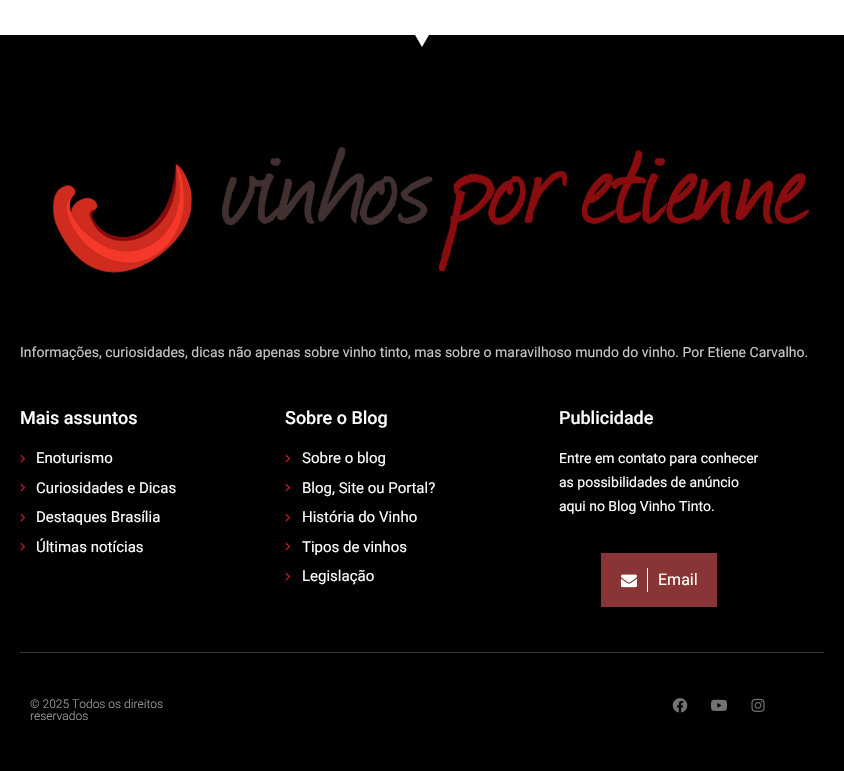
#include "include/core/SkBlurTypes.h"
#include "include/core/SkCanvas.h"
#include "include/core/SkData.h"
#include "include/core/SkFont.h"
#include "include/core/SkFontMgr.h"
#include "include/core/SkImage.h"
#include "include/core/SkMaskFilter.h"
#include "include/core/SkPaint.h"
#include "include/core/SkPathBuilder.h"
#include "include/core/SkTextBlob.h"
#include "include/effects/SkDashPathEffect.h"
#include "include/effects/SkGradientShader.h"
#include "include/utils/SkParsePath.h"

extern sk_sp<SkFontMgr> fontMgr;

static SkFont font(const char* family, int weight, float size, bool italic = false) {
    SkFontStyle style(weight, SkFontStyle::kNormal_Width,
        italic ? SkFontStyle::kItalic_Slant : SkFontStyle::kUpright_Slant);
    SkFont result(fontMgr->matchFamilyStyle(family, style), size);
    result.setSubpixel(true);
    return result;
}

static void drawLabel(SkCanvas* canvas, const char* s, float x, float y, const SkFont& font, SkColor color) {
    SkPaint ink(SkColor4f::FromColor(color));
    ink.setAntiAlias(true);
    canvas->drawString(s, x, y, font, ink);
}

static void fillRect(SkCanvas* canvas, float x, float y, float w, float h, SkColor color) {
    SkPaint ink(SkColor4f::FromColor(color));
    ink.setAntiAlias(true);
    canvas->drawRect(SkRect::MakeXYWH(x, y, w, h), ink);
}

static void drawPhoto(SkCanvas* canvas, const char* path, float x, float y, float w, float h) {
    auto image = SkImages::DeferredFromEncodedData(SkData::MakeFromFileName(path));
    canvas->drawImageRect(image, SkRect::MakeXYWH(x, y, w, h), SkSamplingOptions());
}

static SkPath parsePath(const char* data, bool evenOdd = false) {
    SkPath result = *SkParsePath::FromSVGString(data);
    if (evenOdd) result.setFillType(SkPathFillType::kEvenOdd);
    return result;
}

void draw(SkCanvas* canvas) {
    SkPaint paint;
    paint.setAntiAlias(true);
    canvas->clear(0xFFFFFFFF);
    fillRect(canvas, 0, 35, 844, 736, 0xFF000000);
    paint.setColor(0xFFFFFFFF);
    canvas->drawPath(parsePath("M422 47L414.5 34H429.5Z"), paint);
    drawPhoto(canvas, "assets/img1.png", 53, 147, 756, 126);
    SkFont font1 = font("Roboto", 400, 14);
    drawLabel(canvas, "Informações, curiosidades, dicas não apenas sobre vinho tinto, mas sobre o maravilhoso mundo do vinho. Por Etiene Carvalho.", 20, 357, font1, 0xFFC9C9C9);
    SkFont font2 = font("Roboto", 500, 18);
    drawLabel(canvas, "Mais assuntos", 20, 424, font2, 0xFFFFFFFF);
    drawPhoto(canvas, "assets/img2.png", 20, 454, 6, 9);
    SkFont font3 = font("Roboto", 400, 15);
    drawLabel(canvas, "Enoturismo", 36, 463, font3, 0xFFFFFFFF);
    drawPhoto(canvas, "assets/img2.png", 20, 483, 6, 9);
    drawLabel(canvas, "Curiosidades e Dicas", 36, 493, font3, 0xFFFFFFFF);
    drawPhoto(canvas, "assets/img2.png", 20, 513, 6, 9);
    drawLabel(canvas, "Destaques Brasília", 36, 522, font3, 0xFFFFFFFF);
    drawPhoto(canvas, "assets/img2.png", 20, 542, 6, 9);
    drawLabel(canvas, "Últimas notícias", 36, 552, font3, 0xFFFFFFFF);
    drawLabel(canvas, "Sobre o Blog", 285, 424, font2, 0xFFFFFFFF);
    drawPhoto(canvas, "assets/img2.png", 285, 454, 6, 9);
    drawLabel(canvas, "Sobre o blog", 302, 463, font3, 0xFFFFFFFF);
    drawPhoto(canvas, "assets/img2.png", 285, 483, 6, 9);
    drawLabel(canvas, "Blog, Site ou Portal?", 302, 493, font3, 0xFFFFFFFF);
    drawPhoto(canvas, "assets/img2.png", 285, 513, 6, 9);
    drawLabel(canvas, "História do Vinho", 302, 522, font3, 0xFFFFFFFF);
    drawPhoto(canvas, "assets/img2.png", 285, 542, 6, 9);
    drawLabel(canvas, "Tipos de vinhos", 302, 552, font3, 0xFFFFFFFF);
    drawPhoto(canvas, "assets/img2.png", 285, 572, 6, 9);
    drawLabel(canvas, "Legislação", 302, 581, font3, 0xFFFFFFFF);
    drawLabel(canvas, "Publicidade", 559, 424, font2, 0xFFFFFFFF);
    drawLabel(canvas, "Entre em contato para conhecer", 559, 463, font1, 0xFFFFFFFF);
    drawLabel(canvas, "as possibilidades de anúncio", 559, 487, font1, 0xFFFFFFFF);
    drawLabel(canvas, "aqui no Blog Vinho Tinto.", 559, 511, font1, 0xFFFFFFFF);
    fillRect(canvas, 601, 553, 116, 54, 0xFF893535);
    drawPhoto(canvas, "assets/img3.png", 621, 574, 16, 14);
    fillRect(canvas, 647, 568, 1, 24, 0xFFFFFFFF);
    SkFont font4 = font("Roboto", 400, 16);
    drawLabel(canvas, "Email", 658, 585, font4, 0xFFFFFFFF);
    fillRect(canvas, 20, 652, 804, 1, 0xFF363636);
    SkFont font5 = font("Roboto", 300, 12);
    drawLabel(canvas, "© 2025 Todos os direitos", 30, 708, font5, 0xFFA6A6A6);
    drawLabel(canvas, "reservados", 30, 720, font5, 0xFFA6A6A6);
    drawPhoto(canvas, "assets/img4.png", 672, 698, 16, 15);
    drawPhoto(canvas, "assets/img5.png", 711, 699, 16, 12);
    drawPhoto(canvas, "assets/img6.png", 751, 698, 14, 14);
}
